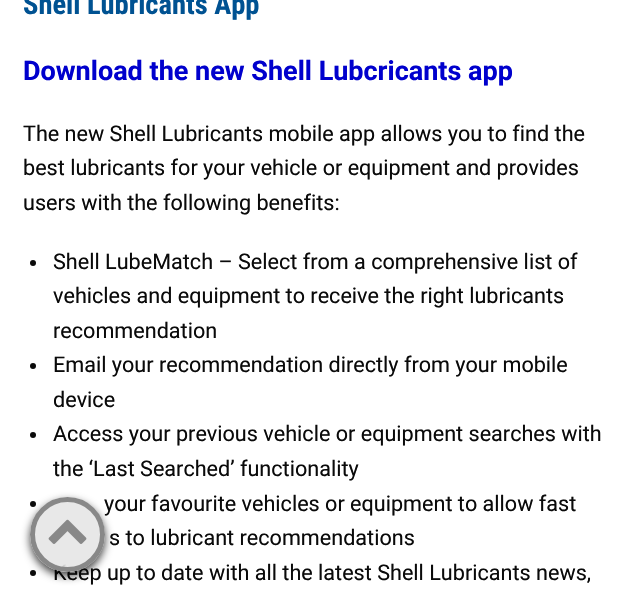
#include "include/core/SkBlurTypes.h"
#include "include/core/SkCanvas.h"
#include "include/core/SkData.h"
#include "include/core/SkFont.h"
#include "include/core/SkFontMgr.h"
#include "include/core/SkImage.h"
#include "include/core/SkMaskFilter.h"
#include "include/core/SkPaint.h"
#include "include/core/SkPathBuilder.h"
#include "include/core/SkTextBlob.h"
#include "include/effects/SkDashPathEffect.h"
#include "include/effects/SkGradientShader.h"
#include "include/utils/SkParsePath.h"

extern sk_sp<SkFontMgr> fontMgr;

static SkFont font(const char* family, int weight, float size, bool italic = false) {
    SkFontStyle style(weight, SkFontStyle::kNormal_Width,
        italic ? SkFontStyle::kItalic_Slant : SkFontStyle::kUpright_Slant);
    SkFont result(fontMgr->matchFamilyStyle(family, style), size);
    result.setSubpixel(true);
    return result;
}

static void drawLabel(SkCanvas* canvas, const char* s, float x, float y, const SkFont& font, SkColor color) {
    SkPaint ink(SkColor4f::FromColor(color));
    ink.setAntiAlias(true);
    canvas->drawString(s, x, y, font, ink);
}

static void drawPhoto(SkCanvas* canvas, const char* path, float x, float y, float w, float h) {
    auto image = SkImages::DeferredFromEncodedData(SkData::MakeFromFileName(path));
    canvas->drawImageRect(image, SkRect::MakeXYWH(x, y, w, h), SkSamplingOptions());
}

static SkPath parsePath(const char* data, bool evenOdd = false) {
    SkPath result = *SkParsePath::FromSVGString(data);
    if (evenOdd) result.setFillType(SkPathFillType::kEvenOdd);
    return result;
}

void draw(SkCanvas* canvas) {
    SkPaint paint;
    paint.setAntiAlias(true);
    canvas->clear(0xFFFFFFFF);
    SkFont font1 = font("Roboto Condensed", 700, 28.5f);
    drawLabel(canvas, "Shell Lubricants App", 23, 14, font1, 0xFF005292);
    SkFont font2 = font("Roboto", 700, 27);
    drawLabel(canvas, "Download the new Shell Lubcricants app", 23, 80, font2, 0xFF0000CD);
    SkFont font3 = font("Roboto", 400, 21.6f);
    drawLabel(canvas, "The new Shell Lubricants mobile app allows you to find the", 23, 141, font3, 0xFF0A0A0A);
    drawLabel(canvas, "best lubricants for your vehicle or equipment and provides", 23, 175, font3, 0xFF0A0A0A);
    drawLabel(canvas, "users with the following benefits:", 23, 210, font3, 0xFF0A0A0A);
    paint.setColor(0xFF0A0A0A);
    canvas->drawCircle(33, 263, 3, paint);
    drawLabel(canvas, "Shell LubeMatch – Select from a comprehensive list of", 53, 269, font3, 0xFF0A0A0A);
    drawLabel(canvas, "vehicles and equipment to receive the right lubricants", 53, 303, font3, 0xFF0A0A0A);
    drawLabel(canvas, "recommendation", 53, 338, font3, 0xFF0A0A0A);
    canvas->drawCircle(33, 366, 3, paint);
    drawLabel(canvas, "Email your recommendation directly from your mobile", 53, 372, font3, 0xFF0A0A0A);
    drawLabel(canvas, "device", 53, 407, font3, 0xFF0A0A0A);
    canvas->drawCircle(33, 435, 3, paint);
    drawLabel(canvas, "Access your previous vehicle or equipment searches with", 53, 441, font3, 0xFF0A0A0A);
    drawLabel(canvas, "the ‘Last Searched’ functionality", 53, 476, font3, 0xFF0A0A0A);
    canvas->drawCircle(33, 504, 3, paint);
    drawLabel(canvas, "your favourite vehicles or equipment to allow fast", 104, 511, font3, 0xFF0A0A0A);
    drawLabel(canvas, "s to lubricant recommendations", 109, 545, font3, 0xFF0A0A0A);
    canvas->drawCircle(33, 573, 3, paint);
    drawLabel(canvas, "Keep up to date with all the latest Shell Lubricants news,", 53, 580, font3, 0xFF0A0A0A);
    canvas->save();
    canvas->clipPath(parsePath("M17 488H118V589H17ZM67.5 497C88 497 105 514 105 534.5C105 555 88 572 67.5 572C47 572 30 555 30 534.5C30 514 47 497 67.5 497Z", true), true);
    paint.setColor(0xBF000000);
    paint.setMaskFilter(SkMaskFilter::MakeBlur(kNormal_SkBlurStyle, 4));
    canvas->drawRoundRect(SkRect::MakeXYWH(30, 501, 75, 75), 37.5f, 37.5f, paint);
    paint.setMaskFilter(nullptr);
    canvas->restore();
    paint.setColor(0xE6E5E5E5);
    canvas->drawCircle(67.5f, 534.5f, 35, paint);
    paint.setStroke(true);
    paint.setStrokeWidth(5);
    paint.setColor(0xFF888888);
    canvas->drawCircle(67.5f, 534.5f, 35, paint);
    drawPhoto(canvas, "assets/img1.png", 48, 519, 39, 25);
}
